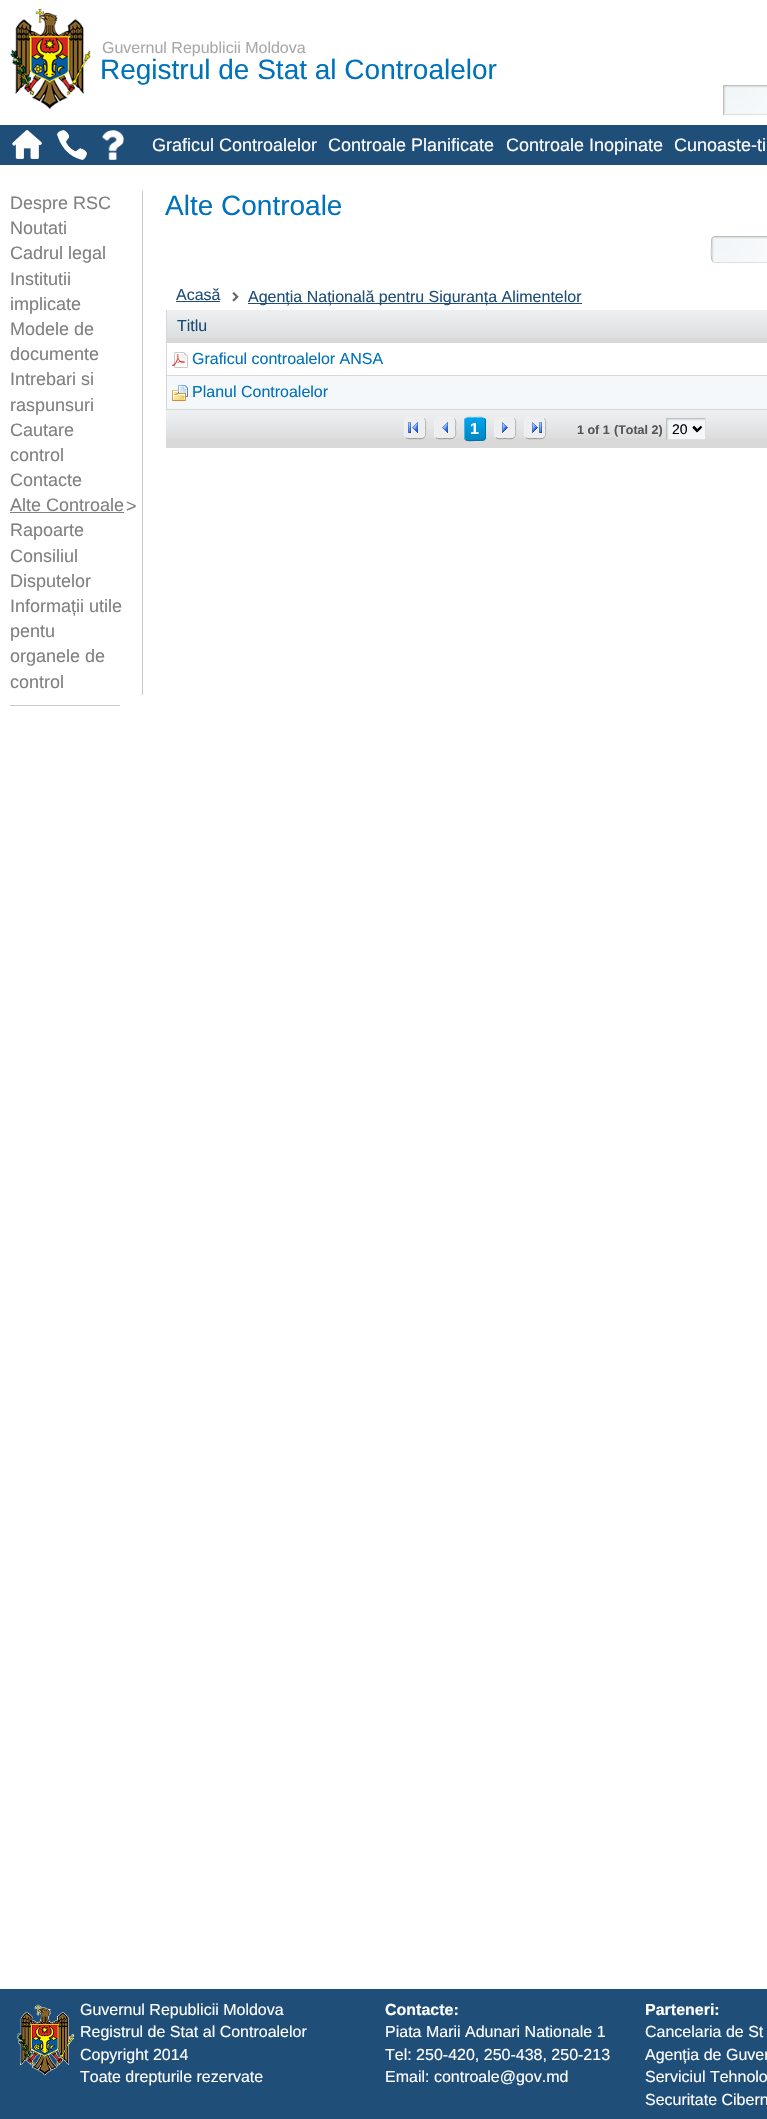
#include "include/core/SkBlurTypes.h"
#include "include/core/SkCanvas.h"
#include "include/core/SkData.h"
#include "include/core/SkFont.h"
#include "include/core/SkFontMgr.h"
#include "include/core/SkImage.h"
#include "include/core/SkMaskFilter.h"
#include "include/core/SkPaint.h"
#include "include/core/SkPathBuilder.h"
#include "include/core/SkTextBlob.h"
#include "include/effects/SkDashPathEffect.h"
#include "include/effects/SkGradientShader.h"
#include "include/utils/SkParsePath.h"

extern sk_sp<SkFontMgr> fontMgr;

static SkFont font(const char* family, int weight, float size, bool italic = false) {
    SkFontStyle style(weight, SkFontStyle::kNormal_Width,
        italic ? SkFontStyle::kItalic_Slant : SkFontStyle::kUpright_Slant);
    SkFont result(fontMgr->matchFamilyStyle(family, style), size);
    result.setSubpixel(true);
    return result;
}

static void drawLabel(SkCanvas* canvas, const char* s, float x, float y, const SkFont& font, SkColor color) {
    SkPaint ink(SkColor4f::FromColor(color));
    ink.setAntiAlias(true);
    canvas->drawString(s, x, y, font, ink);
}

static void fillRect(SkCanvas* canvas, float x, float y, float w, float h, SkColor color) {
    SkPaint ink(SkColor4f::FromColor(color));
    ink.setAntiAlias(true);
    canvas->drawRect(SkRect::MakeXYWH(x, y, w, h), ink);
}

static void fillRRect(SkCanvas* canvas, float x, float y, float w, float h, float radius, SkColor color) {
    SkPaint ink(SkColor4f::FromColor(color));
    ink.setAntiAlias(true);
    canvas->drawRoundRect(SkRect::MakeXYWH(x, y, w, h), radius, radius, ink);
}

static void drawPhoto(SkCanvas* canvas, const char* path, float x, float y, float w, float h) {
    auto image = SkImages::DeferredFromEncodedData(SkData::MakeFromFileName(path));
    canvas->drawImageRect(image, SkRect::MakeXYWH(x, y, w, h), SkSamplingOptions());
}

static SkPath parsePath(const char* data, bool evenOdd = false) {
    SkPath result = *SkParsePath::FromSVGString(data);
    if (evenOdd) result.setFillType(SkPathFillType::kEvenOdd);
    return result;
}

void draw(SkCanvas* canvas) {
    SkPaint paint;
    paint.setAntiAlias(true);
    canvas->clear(0xFFFFFFFF);
    drawPhoto(canvas, "assets/img1.png", 10, 9, 81, 100);
    SkFont font1 = font("Liberation Sans", 400, 16);
    drawLabel(canvas, "Guvernul Republicii Moldova", 102, 53, font1, 0xFFA9A9A9);
    SkFont font2 = font("Liberation Sans", 400, 28);
    drawLabel(canvas, "Registrul de Stat al Controalelor", 100, 79, font2, 0xFF0072BB);
    drawPhoto(canvas, "assets/img2.png", 724, 86, 43, 28);
    fillRect(canvas, 723, 85, 44, 1, 0xFFBFBFBF);
    fillRect(canvas, 723, 114, 44, 1, 0xFFDEDEDE);
    fillRect(canvas, 723, 85, 1, 30, 0xFFBFBFBF);
    fillRect(canvas, 0, 125, 767, 40, 0xFF1F4E79);
    drawPhoto(canvas, "assets/img3.png", 12, 130, 30, 29);
    drawPhoto(canvas, "assets/img4.png", 57, 130, 30, 30);
    drawPhoto(canvas, "assets/img5.png", 102, 130, 22, 30);
    SkFont font3 = font("Liberation Sans", 400, 18);
    drawLabel(canvas, "Graficul Controalelor", 152, 151, font3, 0xFFFFFFFF);
    drawLabel(canvas, "Controale Planificate", 328, 151, font3, 0xFFFFFFFF);
    drawLabel(canvas, "Controale Inopinate", 506, 151, font3, 0xFFFFFFFF);
    drawLabel(canvas, "Cunoaste-ti", 674, 151, font3, 0xFFFFFFFF);
    drawLabel(canvas, "Despre RSC", 10, 209, font3, 0xFF808080);
    fillRect(canvas, 142, 191, 1, 504, 0xFFC8C8C8);
    drawLabel(canvas, "Noutati", 10, 234, font3, 0xFF808080);
    drawLabel(canvas, "Cadrul legal", 10, 259, font3, 0xFF808080);
    drawLabel(canvas, "Institutii", 10, 285, font3, 0xFF808080);
    drawLabel(canvas, "implicate", 10, 310, font3, 0xFF808080);
    drawLabel(canvas, "Modele de", 10, 335, font3, 0xFF808080);
    drawLabel(canvas, "documente", 10, 360, font3, 0xFF808080);
    drawLabel(canvas, "Intrebari si", 10, 385, font3, 0xFF808080);
    drawLabel(canvas, "raspunsuri", 10, 411, font3, 0xFF808080);
    drawLabel(canvas, "Cautare", 10, 436, font3, 0xFF808080);
    drawLabel(canvas, "control", 10, 461, font3, 0xFF808080);
    drawLabel(canvas, "Contacte", 10, 486, font3, 0xFF808080);
    drawLabel(canvas, "Alte Controale", 10, 511, font3, 0xFF808080);
    fillRect(canvas, 10, 512, 114, 1, 0xFF808080);
    drawLabel(canvas, ">", 126, 512, font3, 0xFF808080);
    drawLabel(canvas, "Rapoarte", 10, 536, font3, 0xFF808080);
    drawLabel(canvas, "Consiliul", 10, 562, font3, 0xFF808080);
    drawLabel(canvas, "Disputelor", 10, 587, font3, 0xFF808080);
    drawLabel(canvas, "Informații utile", 10, 612, font3, 0xFF808080);
    drawLabel(canvas, "pentu", 10, 637, font3, 0xFF808080);
    drawLabel(canvas, "organele de", 10, 662, font3, 0xFF808080);
    drawLabel(canvas, "control", 10, 688, font3, 0xFF808080);
    fillRect(canvas, 10, 705, 110, 1, 0xFFC8C8C8);
    drawLabel(canvas, "Alte Controale", 165, 215, font2, 0xFF0072BB);
    drawPhoto(canvas, "assets/img6.png", 712, 237, 55, 26);
    paint.setStroke(true);
    paint.setStrokeWidth(1);
    paint.setColor(0xFFDEDEDE);
    canvas->drawPath(parsePath("M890.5 236.5V253.5C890.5 272 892 262.5 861 262.5H715L712.5 261.5"), paint);
    paint.setColor(0xFFBFBFBF);
    canvas->drawPath(parsePath("M712.5 261.5C710.5 259 711.5 246.5 711.5 243C711.5 240.5 711 236.5 715 236.5H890.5"), paint);
    drawPhoto(canvas, "assets/img7.png", 232, 292, 7, 10);
    drawLabel(canvas, "Acasă", 176, 300, font1, 0xFF1F4E79);
    fillRect(canvas, 176, 301, 44, 1, 0xFF1F4E79);
    fillRect(canvas, 248, 303, 334, 1, 0xFF1F4E79);
    drawLabel(canvas, "Agenția Națională pentru Siguranța Alimentelor", 248, 302, font1, 0xFF1F4E79);
    fillRect(canvas, 166, 310, 1, 100, 0xFFD7D7D7);
    fillRect(canvas, 167, 338, 600, 4, 0xFFD9D9D9);
    drawPhoto(canvas, "assets/img8.png", 167, 310, 600, 28);
    drawLabel(canvas, "Titlu", 177, 331, font1, 0xFF154B75);
    fillRect(canvas, 166, 342, 601, 1, 0xFFD7D7D7);
    drawPhoto(canvas, "assets/img9.png", 172, 352, 16, 16);
    drawLabel(canvas, "Graficul controalelor ANSA", 192, 364, font1, 0xFF0072BB);
    fillRect(canvas, 167, 376, 600, 33, 0xFFF5F8FB);
    fillRect(canvas, 166, 375, 601, 1, 0xFFD7D7D7);
    fillRect(canvas, 166, 409, 601, 1, 0xFFD7D7D7);
    drawPhoto(canvas, "assets/img10.png", 172, 385, 16, 16);
    drawLabel(canvas, "Planul Controalelor", 192, 397, font1, 0xFF0072BB);
    fillRect(canvas, 166, 438, 601, 10, 0xFFD9D9D9);
    drawPhoto(canvas, "assets/img11.png", 166, 410, 601, 28);
    fillRRect(canvas, 404, 417, 22, 22, 4, 0xFFEEEEEE);
    drawPhoto(canvas, "assets/img12.png", 408, 422, 10, 11);
    paint.setColor(0xFFF0F1F2);
    canvas->drawPath(parsePath("M405.5 418.5C407.5 416.5 412.5 417.5 415 417.5C417.5 417.5 422.5 416.5 424.5 418.5"), paint);
    paint.setColor(0xFFB2B2B2);
    canvas->drawPath(parsePath("M424.5 418.5C426.5 420.5 425.5 425.5 425.5 428C425.5 430.5 426.5 435.5 424.5 437.5"), paint);
    paint.setColor(0xFF949494);
    canvas->drawPath(parsePath("M424.5 437.5C422.5 439.5 417.5 438.5 415 438.5C412.5 438.5 407.5 439.5 405.5 437.5"), paint);
    paint.setColor(0xFFF0F1F1);
    canvas->drawPath(parsePath("M405.5 437.5C403.5 435.5 404.5 430.5 404.5 428C404.5 425.5 403.5 420.5 405.5 418.5"), paint);
    fillRRect(canvas, 434, 417, 22, 22, 4, 0xFFEEEEEE);
    drawPhoto(canvas, "assets/img13.png", 442, 422, 6, 11);
    paint.setColor(0xFFF0F1F2);
    canvas->drawPath(parsePath("M435.5 418.5C437.5 416.5 442.5 417.5 445 417.5C447.5 417.5 452.5 416.5 454.5 418.5"), paint);
    paint.setColor(0xFFB2B2B2);
    canvas->drawPath(parsePath("M454.5 418.5C456.5 420.5 455.5 425.5 455.5 428C455.5 430.5 456.5 435.5 454.5 437.5"), paint);
    paint.setColor(0xFF949494);
    canvas->drawPath(parsePath("M454.5 437.5C452.5 439.5 447.5 438.5 445 438.5C442.5 438.5 437.5 439.5 435.5 437.5"), paint);
    paint.setColor(0xFFF0F1F1);
    canvas->drawPath(parsePath("M435.5 437.5C433.5 435.5 434.5 430.5 434.5 428C434.5 425.5 433.5 420.5 435.5 418.5"), paint);
    drawPhoto(canvas, "assets/img14.png", 464, 418, 22, 23);
    paint.setColor(0xFF38B6EF);
    canvas->drawPath(parsePath("M465.5 418.5C467.5 416.5 472.5 417.5 475 417.5C477.5 417.5 482.5 416.5 484.5 418.5"), paint);
    paint.setColor(0xFF006D9E);
    canvas->drawPath(parsePath("M484.5 418.5C486 420 485.5 422 485.5 423.5V429C485.5 441 487 440.5 475 440.5C472.5 440.5 467.5 441.5 465.5 439.5"), paint);
    paint.setColor(0xFF46B4E6);
    canvas->drawPath(parsePath("M465.5 439.5C465 439 464.5 438 464.5 437V421C464.5 420 465 419 465.5 418.5"), paint);
    SkFont font4 = font("Liberation Sans", 700, 16);
    drawLabel(canvas, "1", 470, 434, font4, 0xFFFFFFFF);
    fillRRect(canvas, 494, 417, 22, 22, 4, 0xFFEEEEEE);
    drawPhoto(canvas, "assets/img15.png", 502, 422, 6, 11);
    paint.setColor(0xFFF0F1F2);
    canvas->drawPath(parsePath("M495.5 418.5C497.5 416.5 502.5 417.5 505 417.5C507.5 417.5 512.5 416.5 514.5 418.5"), paint);
    paint.setColor(0xFFB2B2B2);
    canvas->drawPath(parsePath("M514.5 418.5C516.5 420.5 515.5 425.5 515.5 428C515.5 430.5 516.5 435.5 514.5 437.5"), paint);
    paint.setColor(0xFF949494);
    canvas->drawPath(parsePath("M514.5 437.5C512.5 439.5 507.5 438.5 505 438.5C502.5 438.5 497.5 439.5 495.5 437.5"), paint);
    paint.setColor(0xFFF0F1F1);
    canvas->drawPath(parsePath("M495.5 437.5C493.5 435.5 494.5 430.5 494.5 428C494.5 425.5 493.5 420.5 495.5 418.5"), paint);
    fillRRect(canvas, 524, 417, 22, 22, 4, 0xFFEEEEEE);
    drawPhoto(canvas, "assets/img16.png", 532, 422, 10, 11);
    paint.setColor(0xFFF0F1F2);
    canvas->drawPath(parsePath("M525.5 418.5C527.5 416.5 532.5 417.5 535 417.5C537.5 417.5 542.5 416.5 544.5 418.5"), paint);
    paint.setColor(0xFFB2B2B2);
    canvas->drawPath(parsePath("M544.5 418.5C546.5 420.5 545.5 425.5 545.5 428C545.5 430.5 546.5 435.5 544.5 437.5"), paint);
    paint.setColor(0xFF949494);
    canvas->drawPath(parsePath("M544.5 437.5C542.5 439.5 537.5 438.5 535 438.5C532.5 438.5 527.5 439.5 525.5 437.5"), paint);
    paint.setColor(0xFFF0F1F1);
    canvas->drawPath(parsePath("M525.5 437.5C523.5 435.5 524.5 430.5 524.5 428C524.5 425.5 523.5 420.5 525.5 418.5"), paint);
    SkFont font5 = font("Liberation Sans", 700, 12.5f);
    drawLabel(canvas, "1 of 1", 577, 434, font5, 0xFF555555);
    drawLabel(canvas, "(Total 2)", 614, 434, font5, 0xFF555555);
    drawPhoto(canvas, "assets/img17.png", 667, 419, 38, 20);
    fillRect(canvas, 666, 418, 40, 1, 0xFFBFBFBF);
    fillRect(canvas, 705, 418, 1, 22, 0xFFDEDEDE);
    fillRect(canvas, 666, 439, 40, 1, 0xFFDEDEDE);
    fillRect(canvas, 666, 418, 1, 22, 0xFFBFBFBF);
    paint.setStrokeWidth(2);
    paint.setColor(0xFF000000);
    canvas->drawPath(parsePath("M693.5 426.5L697.5 430.5L701.5 426.5"), paint);
    SkFont font6 = font("Liberation Sans", 400, 14);
    drawLabel(canvas, "20", 672, 434, font6, 0xFF000000);
    fillRect(canvas, 0, 1989, 767, 130, 0xFF1F4E79);
    drawPhoto(canvas, "assets/img18.png", 17, 2004, 57, 72);
    drawLabel(canvas, "Guvernul Republicii Moldova", 80, 2015, font1, 0xFFFFFFFF);
    drawLabel(canvas, "Registrul de Stat al Controalelor", 80, 2037, font1, 0xFFFFFFFF);
    drawLabel(canvas, "Copyright 2014", 80, 2060, font1, 0xFFFFFFFF);
    drawLabel(canvas, "Toate drepturile rezervate", 80, 2082, font1, 0xFFFFFFFF);
    drawLabel(canvas, "Contacte:", 385, 2015, font4, 0xFFFFFFFF);
    drawLabel(canvas, "Piata Marii Adunari Nationale 1", 385, 2037, font1, 0xFFFFFFFF);
    drawLabel(canvas, "Теl: 250-420, 250-438, 250-213", 385, 2060, font1, 0xFFFFFFFF);
    drawLabel(canvas, "Email: controale@gov.md", 385, 2082, font1, 0xFFFFFFFF);
    drawLabel(canvas, "Parteneri:", 645, 2015, font4, 0xFFFFFFFF);
    drawLabel(canvas, "Cancelaria de St", 645, 2037, font1, 0xFFFFFFFF);
    drawLabel(canvas, "Agenția de Guver", 645, 2060, font1, 0xFFFFFFFF);
    drawLabel(canvas, "Serviciul Tehnolo", 645, 2082, font1, 0xFFFFFFFF);
    drawLabel(canvas, "Securitate Cibern", 645, 2105, font1, 0xFFFFFFFF);
}
